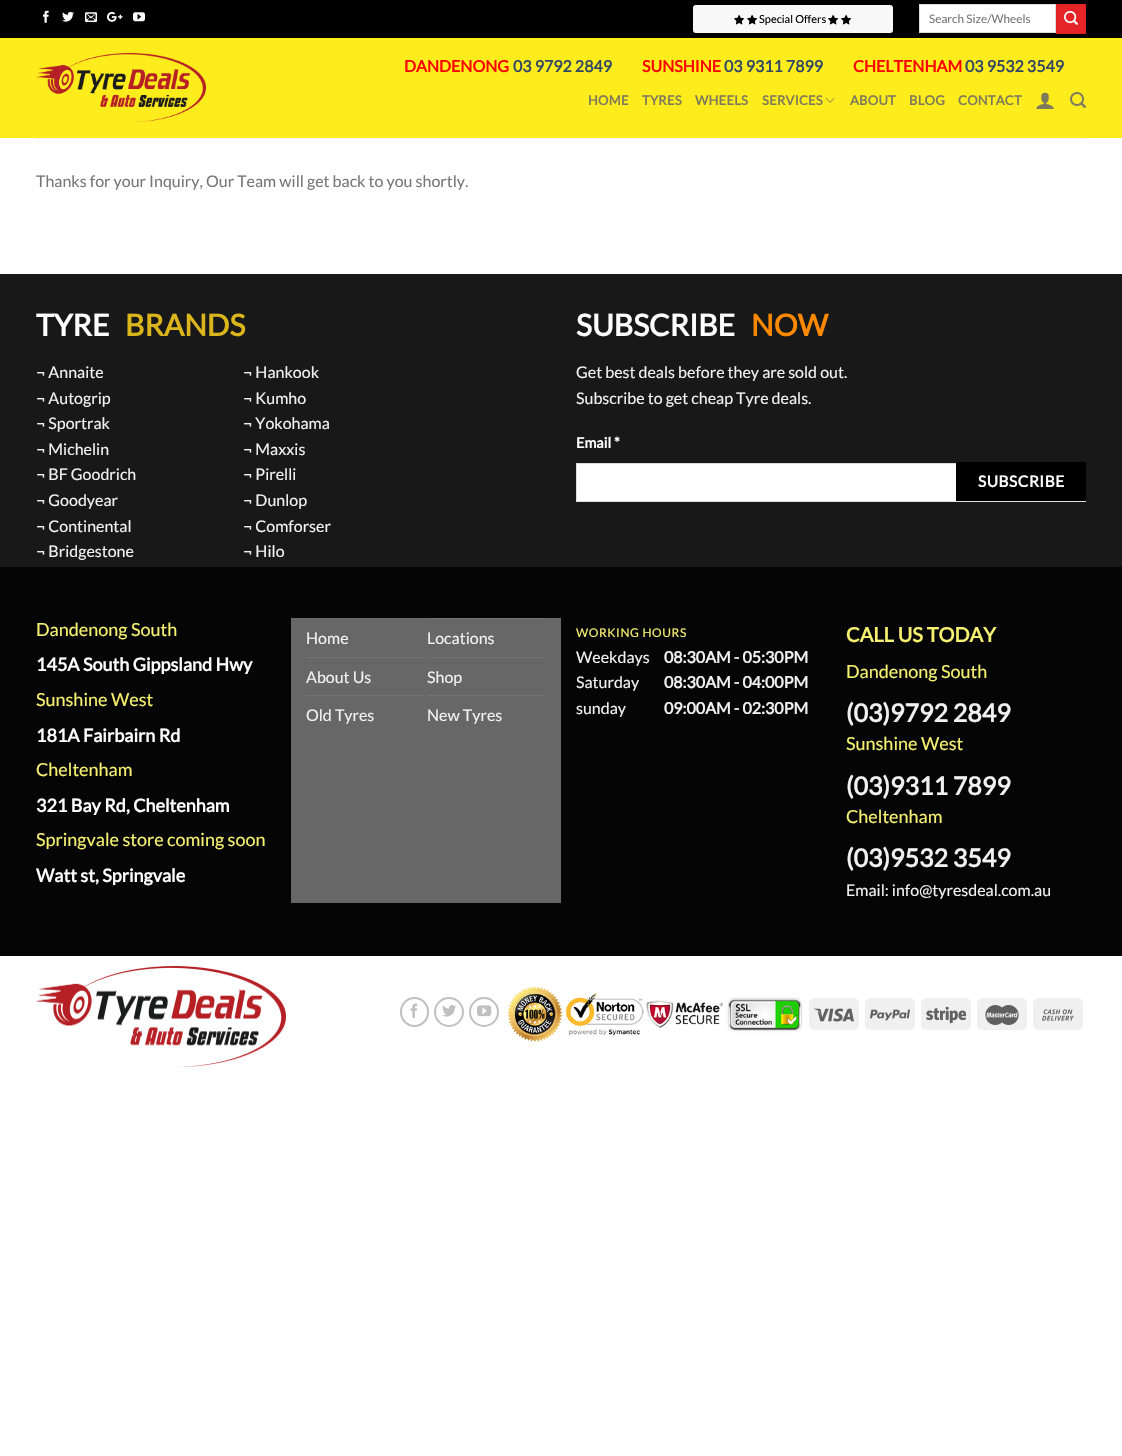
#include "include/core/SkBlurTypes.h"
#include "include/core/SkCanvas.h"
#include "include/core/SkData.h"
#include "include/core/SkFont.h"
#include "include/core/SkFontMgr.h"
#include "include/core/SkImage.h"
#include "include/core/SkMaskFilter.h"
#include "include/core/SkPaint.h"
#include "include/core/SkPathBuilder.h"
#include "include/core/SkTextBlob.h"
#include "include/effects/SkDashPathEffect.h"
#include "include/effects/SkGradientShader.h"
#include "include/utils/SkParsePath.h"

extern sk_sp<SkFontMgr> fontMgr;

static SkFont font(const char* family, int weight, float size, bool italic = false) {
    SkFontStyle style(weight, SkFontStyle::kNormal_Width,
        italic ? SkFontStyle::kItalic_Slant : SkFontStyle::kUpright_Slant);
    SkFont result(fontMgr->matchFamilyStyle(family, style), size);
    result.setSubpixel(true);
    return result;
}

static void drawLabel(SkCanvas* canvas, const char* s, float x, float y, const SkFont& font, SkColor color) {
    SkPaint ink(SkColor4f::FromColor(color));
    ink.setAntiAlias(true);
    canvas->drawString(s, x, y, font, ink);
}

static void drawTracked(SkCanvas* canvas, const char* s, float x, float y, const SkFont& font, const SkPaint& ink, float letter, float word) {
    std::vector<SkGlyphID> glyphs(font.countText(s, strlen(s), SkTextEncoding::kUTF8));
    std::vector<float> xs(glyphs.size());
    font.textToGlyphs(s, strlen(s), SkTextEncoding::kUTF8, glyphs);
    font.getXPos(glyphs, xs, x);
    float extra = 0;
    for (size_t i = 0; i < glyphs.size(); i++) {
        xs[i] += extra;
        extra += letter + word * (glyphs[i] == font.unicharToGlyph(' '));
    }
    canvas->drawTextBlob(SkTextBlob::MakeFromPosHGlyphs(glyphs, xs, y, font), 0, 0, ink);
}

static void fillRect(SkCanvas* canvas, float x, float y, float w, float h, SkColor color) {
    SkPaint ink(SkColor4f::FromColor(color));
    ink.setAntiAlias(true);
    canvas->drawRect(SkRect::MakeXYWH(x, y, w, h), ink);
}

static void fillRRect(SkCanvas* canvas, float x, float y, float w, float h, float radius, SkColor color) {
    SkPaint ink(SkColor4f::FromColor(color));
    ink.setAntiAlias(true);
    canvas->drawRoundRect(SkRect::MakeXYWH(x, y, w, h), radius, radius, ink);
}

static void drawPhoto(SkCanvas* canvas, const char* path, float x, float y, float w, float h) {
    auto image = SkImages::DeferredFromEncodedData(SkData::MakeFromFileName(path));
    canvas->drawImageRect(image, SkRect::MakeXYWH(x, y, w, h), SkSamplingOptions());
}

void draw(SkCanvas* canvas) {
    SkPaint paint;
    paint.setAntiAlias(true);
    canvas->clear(0xFFFFFFFF);
    fillRect(canvas, 0, 38, 1122, 100, 0xFFFFEC1C);
    fillRect(canvas, 0, 0, 1122, 38, 0xFF000000);
    drawPhoto(canvas, "assets/img1.png", 43, 10, 6, 13);
    drawPhoto(canvas, "assets/img2.png", 62, 11, 12, 11);
    drawPhoto(canvas, "assets/img3.png", 85, 12, 12, 10);
    drawPhoto(canvas, "assets/img4.png", 107, 12, 16, 10);
    drawPhoto(canvas, "assets/img5.png", 133, 12, 12, 10);
    fillRRect(canvas, 693, 5, 200, 28, 3, 0xFFF9F9F9);
    drawPhoto(canvas, "assets/img6.png", 734, 14, 11, 11);
    drawPhoto(canvas, "assets/img6.png", 747, 14, 11, 11);
    SkFont font1 = font("Lato", 400, 11);
    drawLabel(canvas, "Special Offers", 759, 23, font1, 0xFF000000);
    drawPhoto(canvas, "assets/img6.png", 828, 14, 11, 11);
    drawPhoto(canvas, "assets/img6.png", 841, 14, 11, 11);
    paint.setColor(0xFFFFFFFF);
    canvas->drawRect(SkRect::MakeXYWH(919.5f, 4.5f, 136, 28), paint);
    paint.setStroke(true);
    paint.setStrokeWidth(1);
    paint.setColor(0xFFDDDDDD);
    canvas->drawRect(SkRect::MakeXYWH(919.5f, 4.5f, 136, 28), paint);
    SkFont font2 = font("Lato", 400, 11.75f);
    drawLabel(canvas, "Search Size/Wheels", 929, 23, font2, 0xFF777777);
    paint.setStroke(false);
    paint.setColor(0xFFE42427);
    canvas->drawRect(SkRect::MakeXYWH(1056.5f, 4.5f, 29, 29), paint);
    paint.setStroke(true);
    paint.setColor(0xFFD92225);
    canvas->drawRect(SkRect::MakeXYWH(1056.5f, 4.5f, 29, 29), paint);
    drawPhoto(canvas, "assets/img7.png", 1064, 10, 14, 15);
    drawPhoto(canvas, "assets/img8.png", 36, 53, 170, 69);
    SkFont font3 = font("Lato", 700, 16);
    drawLabel(canvas, "DANDENONG", 404, 72, font3, 0xFFFF0000);
    drawLabel(canvas, "03 9792 2849", 513, 72, font3, 0xFF334862);
    drawLabel(canvas, "SUNSHINE", 642, 72, font3, 0xFFFF0000);
    drawLabel(canvas, "03 9311 7899", 724, 72, font3, 0xFF334862);
    drawLabel(canvas, "CHELTENHAM", 853, 72, font3, 0xFFFF0000);
    drawLabel(canvas, "03 9532 3549", 965, 72, font3, 0xFF334862);
    SkFont font4 = font("Lato", 700, 13);
    paint.setStroke(false);
    paint.setColor(0xFF7D7A5B);
    drawTracked(canvas, "HOME", 588, 105, font4, paint, 0.25f, 0);
    drawTracked(canvas, "TYRES", 642, 105, font4, paint, 0.25f, 0);
    drawTracked(canvas, "WHEELS", 695, 105, font4, paint, 0.25f, 0);
    drawTracked(canvas, "SERVICES", 762, 105, font4, paint, 0.25f, 0);
    drawPhoto(canvas, "assets/img9.png", 825, 97, 10, 6);
    drawTracked(canvas, "ABOUT", 850, 105, font4, paint, 0.25f, 0);
    drawTracked(canvas, "BLOG", 909, 105, font4, paint, 0.25f, 0);
    drawTracked(canvas, "CONTACT", 958, 105, font4, paint, 0.25f, 0);
    drawPhoto(canvas, "assets/img10.png", 1036, 92, 18, 17);
    drawPhoto(canvas, "assets/img11.png", 1070, 92, 16, 16);
    fillRect(canvas, 36, 138, 1050, 1, 0xFFF1F1F1);
    SkFont font5 = font("Lato", 400, 16);
    drawLabel(canvas, "Thanks for your Inquiry, Our Team will get back to you shortly.", 36, 187, font5, 0xFF777777);
    fillRect(canvas, 0, 274, 1122, 293, 0xFF181818);
    SkFont font6 = font("Lato", 700, 30);
    drawLabel(canvas, "TYRE", 36, 336, font6, 0xFFFFFFFF);
    drawLabel(canvas, "BRANDS", 125, 336, font6, 0xFFDAB51B);
    drawLabel(canvas, "¬ Annaite", 36, 378, font5, 0xFFF1F1F1);
    drawLabel(canvas, "¬ Hankook", 243, 378, font5, 0xFFF1F1F1);
    drawLabel(canvas, "¬ Autogrip", 36, 404, font5, 0xFFF1F1F1);
    drawLabel(canvas, "¬ Kumho", 243, 404, font5, 0xFFF1F1F1);
    drawLabel(canvas, "¬ Sportrak", 36, 429, font5, 0xFFF1F1F1);
    drawLabel(canvas, "¬ Yokohama", 243, 429, font5, 0xFFF1F1F1);
    drawLabel(canvas, "¬ Michelin", 36, 455, font5, 0xFFF1F1F1);
    drawLabel(canvas, "¬ Maxxis", 243, 455, font5, 0xFFF1F1F1);
    drawLabel(canvas, "¬ BF Goodrich", 36, 480, font5, 0xFFF1F1F1);
    drawLabel(canvas, "¬ Pirelli", 243, 480, font5, 0xFFF1F1F1);
    drawLabel(canvas, "¬ Goodyear", 36, 506, font5, 0xFFF1F1F1);
    drawLabel(canvas, "¬ Dunlop", 243, 506, font5, 0xFFF1F1F1);
    drawLabel(canvas, "¬ Continental", 36, 532, font5, 0xFFF1F1F1);
    drawLabel(canvas, "¬ Comforser", 243, 532, font5, 0xFFF1F1F1);
    drawLabel(canvas, "¬ Bridgestone", 36, 557, font5, 0xFFF1F1F1);
    drawLabel(canvas, "¬ Hilo", 243, 557, font5, 0xFFF1F1F1);
    drawLabel(canvas, "SUBSCRIBE", 576, 336, font6, 0xFFFFFFFF);
    drawLabel(canvas, "NOW", 751, 336, font6, 0xFFFC8900);
    drawLabel(canvas, "Get best deals before they are sold out.", 576, 378, font5, 0xFFF1F1F1);
    drawLabel(canvas, "Subscribe to get cheap Tyre deals.", 576, 404, font5, 0xFFF1F1F1);
    SkFont font7 = font("Lato", 700, 14.5f);
    drawLabel(canvas, "Email *", 576, 448, font7, 0xFFFFFFFF);
    fillRect(canvas, 577, 464, 379, 37, 0xFFFFFFFF);
    paint.setStroke(true);
    paint.setColor(0xFFDDDDDD);
    canvas->drawRect(SkRect::MakeXYWH(576.5f, 463.5f, 509, 38), paint);
    fillRect(canvas, 956, 462, 130, 39, 0xFF000000);
    SkFont font8 = font("Lato", 700, 15.5f);
    paint.setStroke(false);
    paint.setColor(0xFFFFFFFF);
    drawTracked(canvas, "SUBSCRIBE", 978, 487, font8, paint, 0.5f, 0);
    fillRect(canvas, 0, 567, 1122, 389, 0xFF050505);
    SkFont font9 = font("Lato", 400, 18);
    drawLabel(canvas, "Dandenong South", 36, 636, font9, 0xFFF7F170);
    SkFont font10 = font("Lato", 700, 18);
    drawLabel(canvas, "145A South Gippsland Hwy", 36, 671, font10, 0xFFFFFFFF);
    drawLabel(canvas, "Sunshine West", 36, 706, font9, 0xFFF7F170);
    drawLabel(canvas, "181A Fairbairn Rd", 36, 742, font10, 0xFFFFFFFF);
    drawLabel(canvas, "Cheltenham", 36, 776, font9, 0xFFF7F170);
    drawLabel(canvas, "321 Bay Rd, Cheltenham", 36, 812, font10, 0xFFFFFFFF);
    drawLabel(canvas, "Springvale store coming soon", 36, 846, font9, 0xFFF7F170);
    drawLabel(canvas, "Watt st, Springvale", 36, 882, font10, 0xFFFFFFFF);
    fillRect(canvas, 291, 618, 270, 285, 0xFF676767);
    drawLabel(canvas, "Home", 306, 644, font5, 0xFFF1F1F1);
    fillRect(canvas, 427, 618, 117, 1, 0xFF737373);
    drawLabel(canvas, "Locations", 427, 644, font5, 0xFFF1F1F1);
    fillRect(canvas, 306, 657, 118, 1, 0xFF737373);
    drawLabel(canvas, "About Us", 306, 683, font5, 0xFFF1F1F1);
    fillRect(canvas, 427, 657, 117, 1, 0xFF737373);
    drawLabel(canvas, "Shop", 427, 683, font5, 0xFFF1F1F1);
    fillRect(canvas, 306, 695, 118, 1, 0xFF737373);
    drawLabel(canvas, "Old Tyres", 306, 721, font5, 0xFFF1F1F1);
    fillRect(canvas, 427, 695, 117, 1, 0xFF737373);
    drawLabel(canvas, "New Tyres", 427, 721, font5, 0xFFF1F1F1);
    SkFont font11 = font("Lato", 400, 12);
    paint.setColor(0xFFF7F170);
    drawTracked(canvas, "WORKING HOURS", 576, 637, font11, paint, 0.6f, 0);
    drawLabel(canvas, "Weekdays", 576, 663, font5, 0xFFF1F1F1);
    drawLabel(canvas, "08:30AM - 05:30PM", 664, 663, font3, 0xFFF1F1F1);
    drawLabel(canvas, "Saturday", 576, 688, font5, 0xFFF1F1F1);
    drawLabel(canvas, "08:30AM - 04:00PM", 664, 688, font3, 0xFFF1F1F1);
    drawLabel(canvas, "sunday", 576, 714, font5, 0xFFF1F1F1);
    drawLabel(canvas, "09:00AM - 02:30PM", 664, 714, font3, 0xFFF1F1F1);
    SkFont font12 = font("Lato", 700, 20);
    drawLabel(canvas, "CALL US TODAY", 846, 642, font12, 0xFFF7F170);
    drawLabel(canvas, "Dandenong South", 846, 678, font9, 0xFFF7F170);
    SkFont font13 = font("Lato", 700, 25);
    drawLabel(canvas, "(03)9792 2849", 846, 722, font13, 0xFFF1F1F1);
    drawLabel(canvas, "Sunshine West", 846, 750, font9, 0xFFF7F170);
    drawLabel(canvas, "(03)9311 7899", 846, 795, font13, 0xFFF1F1F1);
    drawLabel(canvas, "Cheltenham", 846, 823, font9, 0xFFF7F170);
    drawLabel(canvas, "(03)9532 3549", 846, 867, font13, 0xFFF1F1F1);
    drawLabel(canvas, "Email: info@tyresdeal.com.au", 846, 896, font5, 0xFFF1F1F1);
    drawPhoto(canvas, "assets/img12.png", 36, 966, 250, 101);
    paint.setStroke(true);
    paint.setStrokeWidth(2);
    paint.setColor(0xFFC0C0C0);
    canvas->drawRoundRect(SkRect::MakeXYWH(401, 998, 27, 28), 13.5f, 13.5f, paint);
    drawPhoto(canvas, "assets/img13.png", 410, 1003, 8, 15);
    canvas->drawCircle(449, 1012, 14, paint);
    drawPhoto(canvas, "assets/img14.png", 442, 1005, 14, 12);
    canvas->drawCircle(484, 1012, 14, paint);
    drawPhoto(canvas, "assets/img15.png", 477, 1005, 15, 12);
    drawPhoto(canvas, "assets/img16.png", 507, 986, 296, 56);
    fillRRect(canvas, 809, 998, 50, 32, 5, 0xFFF0F0F0);
    drawPhoto(canvas, "assets/img17.png", 814, 1008, 40, 14);
    fillRRect(canvas, 865, 998, 50, 32, 5, 0xFFF0F0F0);
    drawPhoto(canvas, "assets/img18.png", 870, 1009, 40, 12);
    fillRRect(canvas, 921, 998, 50, 32, 5, 0xFFF0F0F0);
    drawPhoto(canvas, "assets/img19.png", 926, 1006, 40, 18);
    fillRRect(canvas, 977, 998, 50, 32, 5, 0xFFF0F0F0);
    drawPhoto(canvas, "assets/img20.png", 985, 1005, 34, 20);
    fillRRect(canvas, 1033, 998, 50, 32, 5, 0xFFF0F0F0);
    drawPhoto(canvas, "assets/img21.png", 1042, 1009, 32, 12);
}
